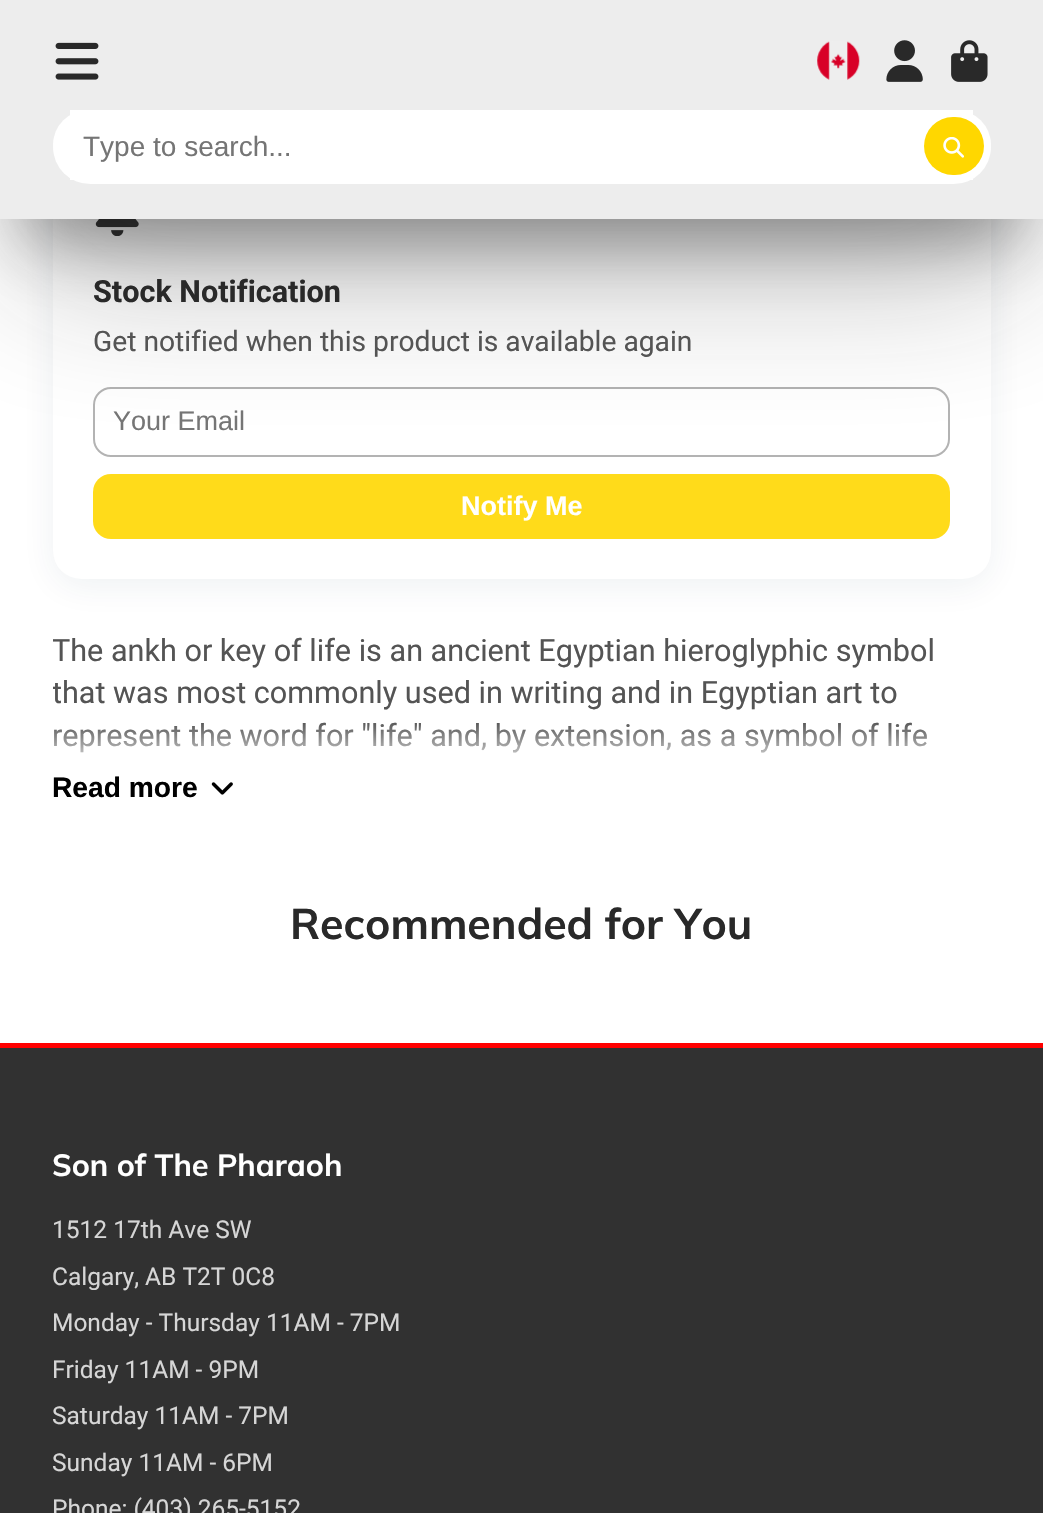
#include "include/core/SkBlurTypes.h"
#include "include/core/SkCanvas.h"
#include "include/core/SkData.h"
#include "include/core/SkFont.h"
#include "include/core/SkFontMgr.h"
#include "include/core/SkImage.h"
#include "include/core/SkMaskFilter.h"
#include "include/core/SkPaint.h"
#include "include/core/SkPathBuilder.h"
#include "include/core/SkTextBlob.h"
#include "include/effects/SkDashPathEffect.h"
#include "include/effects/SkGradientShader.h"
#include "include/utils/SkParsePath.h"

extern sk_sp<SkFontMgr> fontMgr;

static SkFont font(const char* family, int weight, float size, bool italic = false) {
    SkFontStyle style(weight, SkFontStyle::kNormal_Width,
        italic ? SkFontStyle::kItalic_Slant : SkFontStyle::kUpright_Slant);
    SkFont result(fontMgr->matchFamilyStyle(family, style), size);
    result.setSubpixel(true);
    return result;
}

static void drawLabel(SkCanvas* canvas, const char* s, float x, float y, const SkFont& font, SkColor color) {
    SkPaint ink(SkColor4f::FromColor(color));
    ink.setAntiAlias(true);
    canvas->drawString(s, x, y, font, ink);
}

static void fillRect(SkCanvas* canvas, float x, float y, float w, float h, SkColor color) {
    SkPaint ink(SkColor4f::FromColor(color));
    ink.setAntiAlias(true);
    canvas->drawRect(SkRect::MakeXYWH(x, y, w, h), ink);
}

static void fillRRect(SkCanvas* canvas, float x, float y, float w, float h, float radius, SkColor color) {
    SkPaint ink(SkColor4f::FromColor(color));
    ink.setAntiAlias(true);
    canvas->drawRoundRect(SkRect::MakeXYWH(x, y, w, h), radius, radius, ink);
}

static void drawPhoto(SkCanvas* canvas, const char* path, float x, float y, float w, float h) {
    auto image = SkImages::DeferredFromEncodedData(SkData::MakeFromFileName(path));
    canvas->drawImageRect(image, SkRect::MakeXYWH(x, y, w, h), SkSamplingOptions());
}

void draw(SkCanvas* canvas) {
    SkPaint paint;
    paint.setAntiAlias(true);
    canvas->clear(0xFFFFFFFF);
    paint.setColor(0x12133F52);
    paint.setMaskFilter(SkMaskFilter::MakeBlur(kNormal_SkBlurStyle, 17.5f));
    canvas->drawRoundRect(SkRect::MakeXYWH(53, 154, 938, 432), 28, 28, paint);
    paint.setMaskFilter(nullptr);
    fillRRect(canvas, 53, 147, 938, 432, 28, 0xFFFFFFFF);
    drawPhoto(canvas, "assets/img6.png", 95, 219, 44, 17);
    paint.setColor(0x661C1C1C);
    paint.setMaskFilter(SkMaskFilter::MakeBlur(kNormal_SkBlurStyle, 33.5f));
    canvas->drawRect(SkRect::MakeXYWH(25, 70, 994, 170), paint);
    paint.setMaskFilter(nullptr);
    paint.setStroke(true);
    paint.setStrokeWidth(2);
    paint.setColor(0xFFB3B3B3);
    canvas->drawRoundRect(SkRect::MakeXYWH(94, 388, 855, 68), 17, 17, paint);
    fillRRect(canvas, 93, 474, 857, 65, 18, 0xFFFFDB1A);
    paint.setStroke(false);
    paint.setColor(0x4D1C1C1C);
    paint.setMaskFilter(SkMaskFilter::MakeBlur(kNormal_SkBlurStyle, 76.5f));
    canvas->drawRect(SkRect::MakeXYWH(25, 102, 994, 169), paint);
    paint.setMaskFilter(nullptr);
    fillRect(canvas, 0, 0, 1043, 219, 0xFFEDEDED);
    drawPhoto(canvas, "assets/img1.png", 55, 42, 44, 38);
    drawPhoto(canvas, "assets/img2.png", 817, 41, 43, 39);
    drawPhoto(canvas, "assets/img3.png", 886, 40, 37, 42);
    drawPhoto(canvas, "assets/img4.png", 951, 40, 37, 42);
    fillRRect(canvas, 53, 110, 938, 70, 35, 0xFFFFFFFF);
    fillRect(canvas, 70, 110, 903, 70, 0xFFFFFFFF);
    fillRRect(canvas, 53, 110, 938, 74, 37, 0xFFFFFFFF);
    SkFont font1 = font("Liberation Sans", 400, 28);
    drawLabel(canvas, "Type to search...", 83, 156, font1, 0xFF757575);
    fillRRect(canvas, 924, 117, 60, 58, 29, 0xFFFFD700);
    drawPhoto(canvas, "assets/img5.png", 943, 137, 21, 21);
    SkFont font2 = font("Roboto", 700, 30.6f);
    drawLabel(canvas, "Stock Notification", 93, 302, font2, 0xFF292929);
    SkFont font3 = font("Roboto", 400, 28.2f);
    drawLabel(canvas, "Get notified when this product is available again", 93, 351, font3, 0xFF545454);
    SkFont font4 = font("Liberation Sans", 400, 27);
    drawLabel(canvas, "Your Email", 113, 430, font4, 0xFF757575);
    SkFont font5 = font("Liberation Sans", 700, 27);
    drawLabel(canvas, "Notify Me", 461, 515, font5, 0xFFFFFFFF);
    canvas->save();
    canvas->clipRect(SkRect::MakeXYWH(53, 628, 938, 175));
    SkFont font6 = font("Roboto", 400, 30.6f);
    drawLabel(canvas, "The ankh or key of life is an ancient Egyptian hieroglyphic symbol", 52, 661, font6, 0xFF545454);
    drawLabel(canvas, "that was most commonly used in writing and in Egyptian art to", 52, 703, font6, 0xFF545454);
    canvas->restore();
    drawLabel(canvas, "represent the word for \"life\" and, by extension, as a symbol of life", 52, 746, font6, 0xFF545454);
    {
        const SkColor colors[] = {0xFFFFFFFF, 0x00FFFFFF};
        const float stops[] = {0.35f, 1};
        const SkPoint ends[] = {{522, 803}, {522, 721}};
        paint.setShader(SkGradientShader::MakeLinear(ends, colors, stops, 2, SkTileMode::kClamp));
        paint.setAlpha(255);
    }
    canvas->drawRect(SkRect::MakeXYWH(54, 723, 874, 30), paint);
    SkFont font7 = font("Liberation Sans", 700, 28.2f);
    drawLabel(canvas, "Read more", 52, 797, font7, 0xFF000000);
    drawPhoto(canvas, "assets/img7.png", 211, 782, 22, 13);
    SkFont font8 = font("Muli", 700, 42.8f);
    drawLabel(canvas, "Recommended for You", 290, 939, font8, 0xFF292929);
    fillRect(canvas, 0, 1048, 1043, 465, 0xFF313131);
    fillRect(canvas, 0, 1043, 1043, 5, 0xFFFF0000);
    SkFont font9 = font("Muli", 700, 30.6f);
    drawLabel(canvas, "Son of The Pharaoh", 52, 1176, font9, 0xFFFFFFFF);
    SkFont font10 = font("Roboto", 400, 24.5f);
    drawLabel(canvas, "1512 17th Ave SW", 52, 1238, font10, 0xFFD6D6D6);
    drawLabel(canvas, "Calgary, AB T2T 0C8", 52, 1285, font10, 0xFFD6D6D6);
    drawLabel(canvas, "Monday - Thursday 11AM - 7PM", 52, 1331, font10, 0xFFD6D6D6);
    drawLabel(canvas, "Friday 11AM - 9PM", 52, 1378, font10, 0xFFD6D6D6);
    drawLabel(canvas, "Saturday 11AM - 7PM", 52, 1424, font10, 0xFFD6D6D6);
    drawLabel(canvas, "Sunday 11AM - 6PM", 52, 1471, font10, 0xFFD6D6D6);
    drawLabel(canvas, "Phone: (403) 265-5152", 52, 1517, font10, 0xFFD6D6D6);
}
